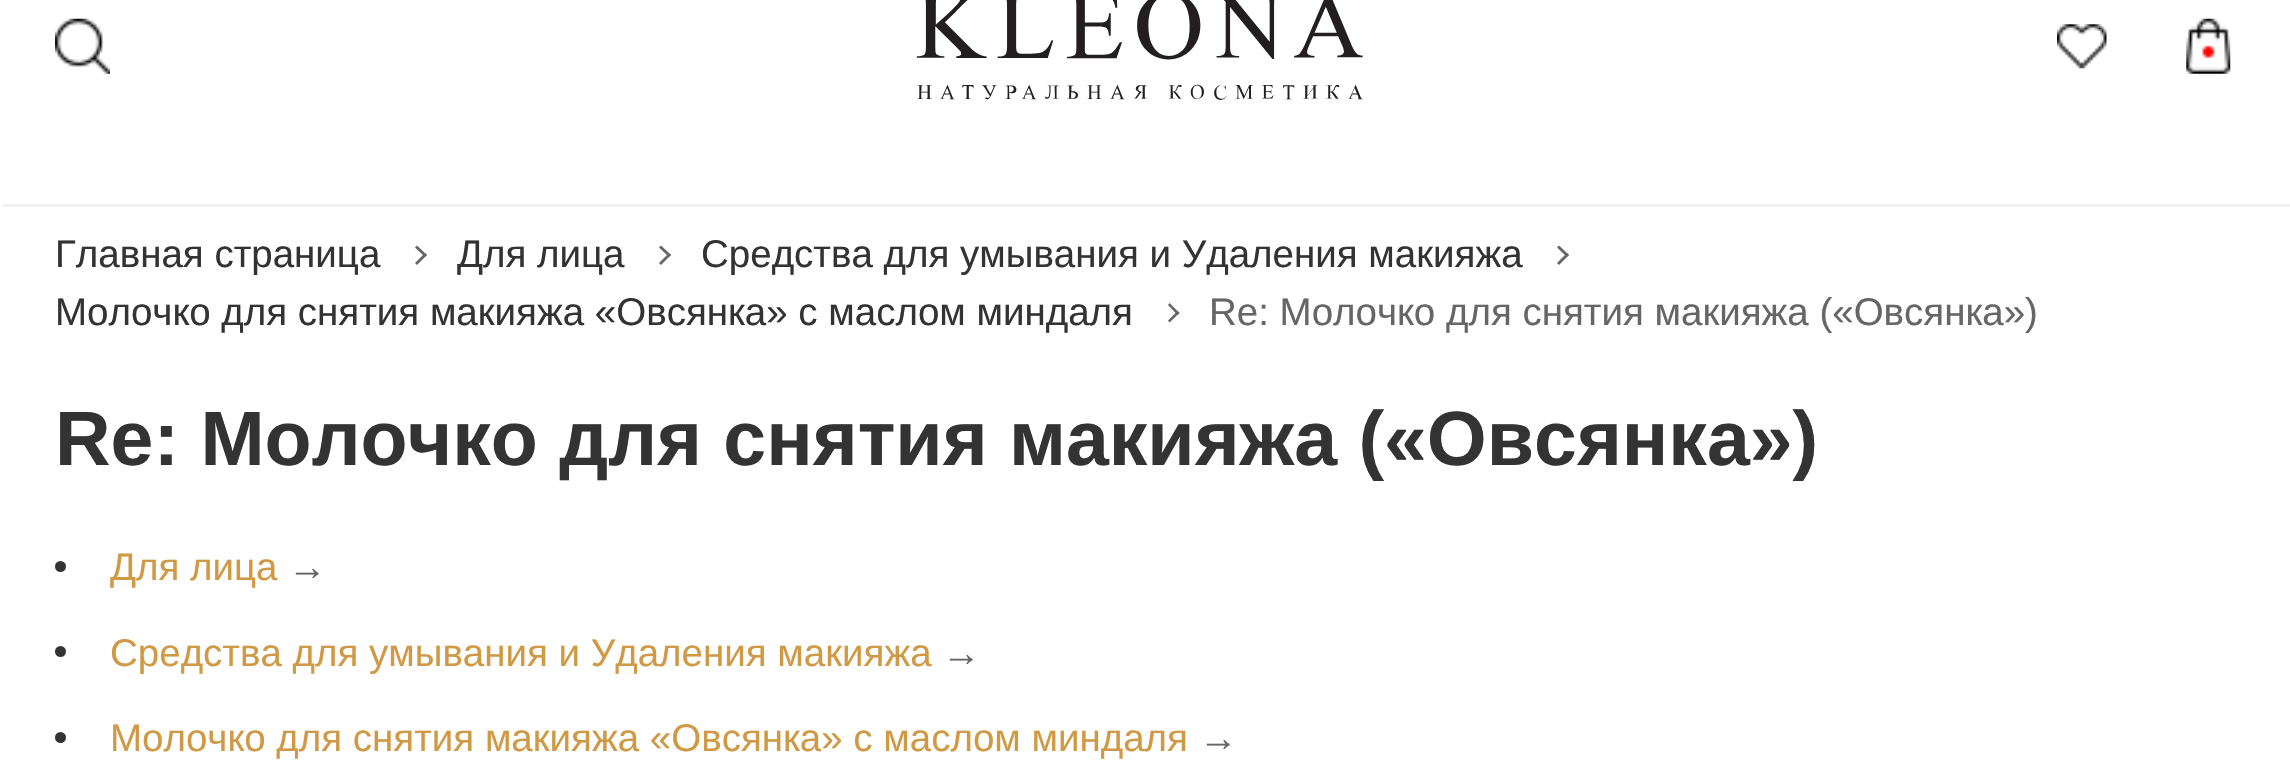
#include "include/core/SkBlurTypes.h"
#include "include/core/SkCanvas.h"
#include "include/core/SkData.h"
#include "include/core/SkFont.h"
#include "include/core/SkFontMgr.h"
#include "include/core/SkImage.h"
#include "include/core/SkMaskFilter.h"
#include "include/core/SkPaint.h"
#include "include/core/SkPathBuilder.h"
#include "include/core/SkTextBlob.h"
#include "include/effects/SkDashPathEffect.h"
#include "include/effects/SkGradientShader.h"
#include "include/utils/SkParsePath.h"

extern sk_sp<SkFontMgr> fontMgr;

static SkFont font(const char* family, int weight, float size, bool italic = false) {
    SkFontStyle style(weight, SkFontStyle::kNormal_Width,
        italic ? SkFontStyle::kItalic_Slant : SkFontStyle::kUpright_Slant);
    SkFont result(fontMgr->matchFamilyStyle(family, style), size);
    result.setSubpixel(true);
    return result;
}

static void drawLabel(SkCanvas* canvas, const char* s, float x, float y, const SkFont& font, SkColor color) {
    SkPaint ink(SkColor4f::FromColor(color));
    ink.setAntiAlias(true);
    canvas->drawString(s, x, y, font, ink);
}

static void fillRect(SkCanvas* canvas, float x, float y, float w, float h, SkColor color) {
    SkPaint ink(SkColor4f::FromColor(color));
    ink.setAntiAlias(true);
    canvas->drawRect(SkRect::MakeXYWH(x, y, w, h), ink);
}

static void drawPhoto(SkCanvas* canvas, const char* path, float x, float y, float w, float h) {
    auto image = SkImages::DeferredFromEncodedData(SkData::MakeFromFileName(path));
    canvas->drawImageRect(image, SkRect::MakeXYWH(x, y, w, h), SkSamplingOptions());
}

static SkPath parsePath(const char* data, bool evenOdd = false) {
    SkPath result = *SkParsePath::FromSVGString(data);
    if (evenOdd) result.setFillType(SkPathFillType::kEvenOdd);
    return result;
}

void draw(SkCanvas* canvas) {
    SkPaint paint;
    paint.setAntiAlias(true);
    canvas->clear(0xFFFFFFFF);
    drawPhoto(canvas, "assets/img1.png", 55, 18, 55, 56);
    drawPhoto(canvas, "assets/img2.png", 916, 0, 447, 100);
    drawPhoto(canvas, "assets/img3.png", 2057, 24, 50, 45);
    drawPhoto(canvas, "assets/img4.png", 2186, 18, 45, 56);
    fillRect(canvas, 3, 204, 2287, 3, 0xFFF1F1F1);
    SkFont font1 = font("Liberation Sans", 400, 38.5f);
    drawLabel(canvas, "Главная страница", 55, 267, font1, 0xFF333333);
    paint.setColor(0xFF666666);
    canvas->drawPath(parsePath("M415 247.5L417 245.5L427 255L425 257Z"), paint);
    canvas->drawPath(parsePath("M415 263L425 253L427 255L417 265Z"), paint);
    drawLabel(canvas, "Для лица", 457, 267, font1, 0xFF333333);
    canvas->drawPath(parsePath("M659 247.5L661 245.5L671 255L669 257Z"), paint);
    canvas->drawPath(parsePath("M659 263L669 253L671 255L661 265Z"), paint);
    drawLabel(canvas, "Средства для умывания и Удаления макияжа", 701, 267, font1, 0xFF333333);
    canvas->drawPath(parsePath("M1557 247.5L1559 245.5L1569 255L1567 257Z"), paint);
    canvas->drawPath(parsePath("M1557 263L1567 253L1569 255L1559 265Z"), paint);
    drawLabel(canvas, "Молочко для снятия макияжа «Овсянка» с маслом миндаля", 55, 325, font1, 0xFF333333);
    canvas->drawPath(parsePath("M1168 305L1169.5 303L1179.5 313L1177.5 315Z"), paint);
    canvas->drawPath(parsePath("M1168 320.5L1177.5 311L1179.5 313L1169.5 322.5Z"), paint);
    drawLabel(canvas, "Re: Молочко для снятия макияжа («Овсянка»)", 1209, 325, font1, 0xFF666666);
    SkFont font2 = font("Liberation Sans", 700, 77);
    drawLabel(canvas, "Re: Молочко для снятия макияжа («Овсянка»)", 55, 465, font2, 0xFF333333);
    paint.setColor(0xFF333333);
    canvas->drawCircle(60.5f, 566.5f, 5.5f, paint);
    drawLabel(canvas, "Для лица", 110, 580, font1, 0xFFD09945);
    drawLabel(canvas, "→", 288, 580, font1, 0xFF666666);
    canvas->drawCircle(60.5f, 651.5f, 5.5f, paint);
    drawLabel(canvas, "Средства для умывания и Удаления макияжа", 110, 666, font1, 0xFFD09945);
    drawLabel(canvas, "→", 942, 666, font1, 0xFF666666);
    canvas->drawCircle(60.5f, 737.5f, 5.5f, paint);
    drawLabel(canvas, "Молочко для снятия макияжа «Овсянка» с маслом миндаля", 110, 751, font1, 0xFFD09945);
    drawLabel(canvas, "→", 1199, 751, font1, 0xFF666666);
}
